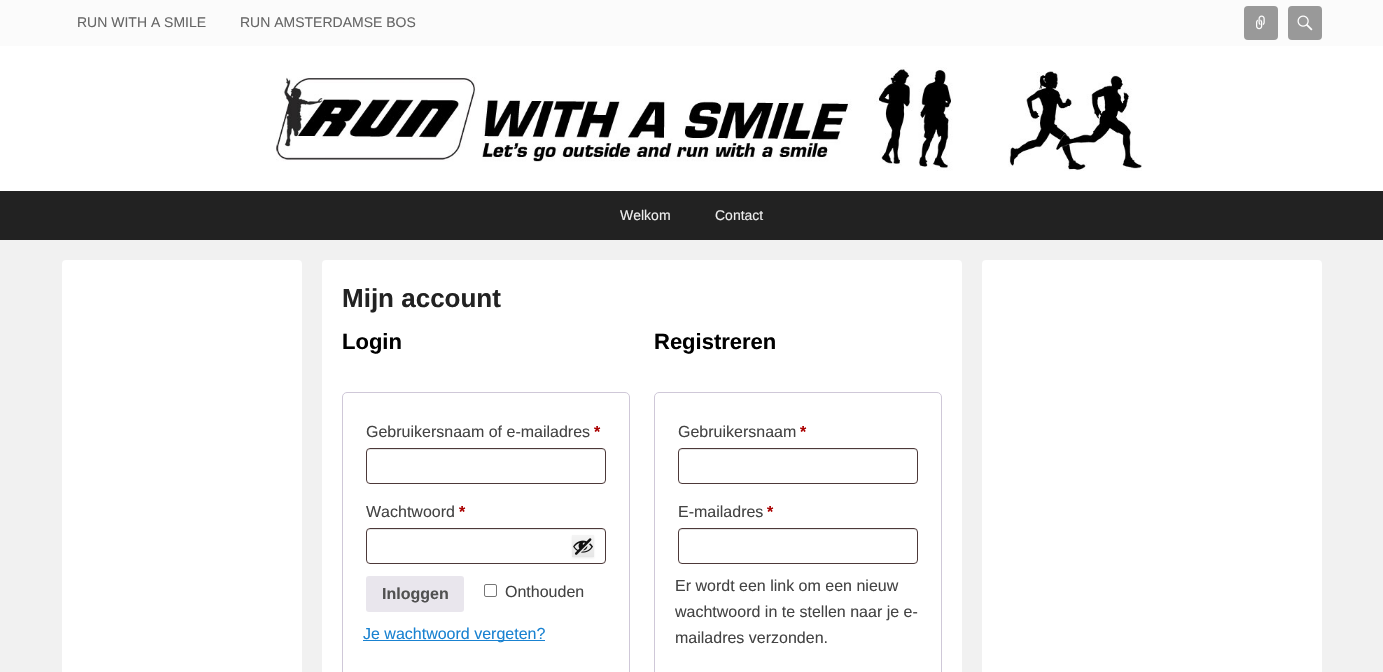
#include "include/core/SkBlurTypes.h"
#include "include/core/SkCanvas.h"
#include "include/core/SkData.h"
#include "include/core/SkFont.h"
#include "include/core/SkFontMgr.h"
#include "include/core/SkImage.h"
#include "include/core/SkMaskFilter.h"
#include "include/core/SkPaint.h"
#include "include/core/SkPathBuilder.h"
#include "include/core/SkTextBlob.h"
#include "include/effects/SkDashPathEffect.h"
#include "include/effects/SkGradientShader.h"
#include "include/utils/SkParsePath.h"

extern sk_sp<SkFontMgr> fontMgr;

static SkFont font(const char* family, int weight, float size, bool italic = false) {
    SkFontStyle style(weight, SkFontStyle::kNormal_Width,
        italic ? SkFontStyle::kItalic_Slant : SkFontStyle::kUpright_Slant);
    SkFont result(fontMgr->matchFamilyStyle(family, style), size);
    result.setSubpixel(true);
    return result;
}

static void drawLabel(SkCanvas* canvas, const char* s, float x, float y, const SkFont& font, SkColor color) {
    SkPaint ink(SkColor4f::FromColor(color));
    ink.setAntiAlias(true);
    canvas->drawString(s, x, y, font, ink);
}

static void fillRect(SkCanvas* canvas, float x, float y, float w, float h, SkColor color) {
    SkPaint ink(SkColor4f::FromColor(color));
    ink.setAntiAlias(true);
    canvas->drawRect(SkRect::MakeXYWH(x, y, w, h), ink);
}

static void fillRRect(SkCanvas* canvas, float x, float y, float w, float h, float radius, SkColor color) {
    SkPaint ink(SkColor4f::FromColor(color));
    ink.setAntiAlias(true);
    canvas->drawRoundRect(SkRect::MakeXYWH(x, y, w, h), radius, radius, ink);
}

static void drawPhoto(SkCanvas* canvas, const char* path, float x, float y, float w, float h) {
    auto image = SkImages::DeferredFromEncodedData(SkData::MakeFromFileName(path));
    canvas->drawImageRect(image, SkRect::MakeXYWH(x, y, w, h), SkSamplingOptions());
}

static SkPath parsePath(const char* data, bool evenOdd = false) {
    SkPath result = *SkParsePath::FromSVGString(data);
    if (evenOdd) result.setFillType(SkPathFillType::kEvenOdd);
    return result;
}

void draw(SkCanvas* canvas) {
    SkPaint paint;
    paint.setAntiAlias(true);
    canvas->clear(0xFFF1F1F1);
    fillRect(canvas, 0, 0, 1383, 46, 0xFFFBFBFB);
    SkFont font1 = font("Liberation Sans", 400, 14);
    drawLabel(canvas, "RUN WITH A SMILE", 77, 27, font1, 0xFF666666);
    drawLabel(canvas, "RUN AMSTERDAMSE BOS", 240, 27, font1, 0xFF666666);
    fillRRect(canvas, 1244, 6, 34, 34, 4, 0xFF999999);
    drawPhoto(canvas, "assets/img1.png", 1256, 15, 9, 15);
    fillRRect(canvas, 1288, 6, 34, 34, 4, 0xFF999999);
    drawPhoto(canvas, "assets/img2.png", 1297, 15, 16, 16);
    fillRect(canvas, 0, 46, 1383, 145, 0xFFFFFFFF);
    drawPhoto(canvas, "assets/img3.png", 276, 67, 866, 104);
    fillRect(canvas, 0, 191, 1383, 49, 0xFF222222);
    drawLabel(canvas, "Welkom", 620, 220, font1, 0xFFEEEEEE);
    drawLabel(canvas, "Contact", 715, 220, font1, 0xFFEEEEEE);
    fillRRect(canvas, 62, 260, 240, 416, 4, 0xFFFFFFFF);
    fillRRect(canvas, 322, 260, 640, 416, 4, 0xFFFFFFFF);
    SkFont font2 = font("Liberation Sans", 700, 26);
    drawLabel(canvas, "Mijn account", 342, 307, font2, 0xFF222222);
    SkFont font3 = font("Liberation Sans", 700, 22);
    drawLabel(canvas, "Login", 342, 349, font3, 0xFF000000);
    paint.setStroke(true);
    paint.setStrokeWidth(1);
    paint.setColor(0xFFCFC8D8);
    canvas->drawRoundRect(SkRect::MakeXYWH(342.5f, 392.5f, 287, 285), 4.5f, 4.5f, paint);
    SkFont font4 = font("Liberation Sans", 400, 16);
    drawLabel(canvas, "Gebruikersnaam of e-mailadres", 366, 437, font4, 0xFF444444);
    SkFont font5 = font("Liberation Sans", 700, 16);
    drawLabel(canvas, "*", 594, 437, font5, 0xFFAA0000);
    paint.setStroke(false);
    paint.setColor(0xFFE6E6E6);
    canvas->drawPath(parsePath("M370 450H603L605 451V453C605 451 604 449 602 449H370C368 449 367 451 367 453C367 451 368 450 370 450Z"), paint);
    paint.setStroke(true);
    paint.setColor(0xFF4D3939);
    canvas->drawRoundRect(SkRect::MakeXYWH(366.5f, 448.5f, 239, 35), 3.5f, 3.5f, paint);
    drawLabel(canvas, "Wachtwoord", 366, 517, font4, 0xFF444444);
    drawLabel(canvas, "*", 459, 517, font5, 0xFFAA0000);
    paint.setStroke(false);
    paint.setColor(0xFFE6E6E6);
    canvas->drawPath(parsePath("M370 530H603L605 531V533C605 531 604 529 602 529H370C368 529 367 531 367 533C367 531 368 530 370 530Z"), paint);
    paint.setStroke(true);
    paint.setColor(0xFF4D3939);
    canvas->drawRoundRect(SkRect::MakeXYWH(366.5f, 528.5f, 239, 35), 3.5f, 3.5f, paint);
    paint.setStroke(false);
    paint.setColor(0x1A404040);
    paint.setMaskFilter(SkMaskFilter::MakeBlur(kNormal_SkBlurStyle, 1));
    canvas->drawRect(SkRect::MakeXYWH(572, 536, 22, 22), paint);
    paint.setMaskFilter(nullptr);
    {
        const SkColor colors[] = {0xFFF4F4F4, 0xFFE6E6E6};
        const float stops[] = {0, 1};
        const SkPoint ends[] = {{583, 535}, {583, 557}};
        paint.setShader(SkGradientShader::MakeLinear(ends, colors, stops, 2, SkTileMode::kClamp));
        paint.setAlpha(255);
    }
    canvas->drawRect(SkRect::MakeXYWH(572, 535, 22, 22), paint);
    drawPhoto(canvas, "assets/img4.png", 573, 538, 20, 17);
    fillRRect(canvas, 366, 576, 98, 36, 3, 0xFFE9E6ED);
    drawLabel(canvas, "Inloggen", 382, 599, font5, 0xFF515151);
    paint.setStroke(true);
    paint.setShader(nullptr);
    paint.setColor(0xFF767676);
    canvas->drawRoundRect(SkRect::MakeXYWH(484.5f, 584.5f, 12, 12), 1.5f, 1.5f, paint);
    drawLabel(canvas, "Onthouden", 505, 597, font4, 0xFF444444);
    fillRect(canvas, 363, 640, 182, 1, 0xFF1982D1);
    drawLabel(canvas, "Je wachtwoord vergeten?", 363, 639, font4, 0xFF1982D1);
    drawLabel(canvas, "Registreren", 654, 349, font3, 0xFF000000);
    paint.setColor(0xFFCFC8D8);
    canvas->drawRoundRect(SkRect::MakeXYWH(654.5f, 392.5f, 287, 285), 4.5f, 4.5f, paint);
    drawLabel(canvas, "Gebruikersnaam", 678, 437, font4, 0xFF444444);
    drawLabel(canvas, "*", 800, 437, font5, 0xFFAA0000);
    paint.setStroke(false);
    paint.setColor(0xFFE6E6E6);
    canvas->drawPath(parsePath("M682 450H915L917 451V453C917 451 916 449 914 449H682C680 449 679 451 679 453C679 451 680 450 682 450Z"), paint);
    paint.setStroke(true);
    paint.setColor(0xFF4D3939);
    canvas->drawRoundRect(SkRect::MakeXYWH(678.5f, 448.5f, 239, 35), 3.5f, 3.5f, paint);
    drawLabel(canvas, "E-mailadres", 678, 517, font4, 0xFF444444);
    drawLabel(canvas, "*", 767, 517, font5, 0xFFAA0000);
    paint.setStroke(false);
    paint.setColor(0xFFE6E6E6);
    canvas->drawPath(parsePath("M682 530H915L917 531V533C917 531 916 529 914 529H682C680 529 679 531 679 533C679 531 680 530 682 530Z"), paint);
    paint.setStroke(true);
    paint.setColor(0xFF4D3939);
    canvas->drawRoundRect(SkRect::MakeXYWH(678.5f, 528.5f, 239, 35), 3.5f, 3.5f, paint);
    drawLabel(canvas, "Er wordt een link om een nieuw", 675, 591, font4, 0xFF444444);
    drawLabel(canvas, "wachtwoord in te stellen naar je e-", 675, 617, font4, 0xFF444444);
    drawLabel(canvas, "mailadres verzonden.", 675, 643, font4, 0xFF444444);
    fillRRect(canvas, 982, 260, 340, 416, 4, 0xFFFFFFFF);
}
